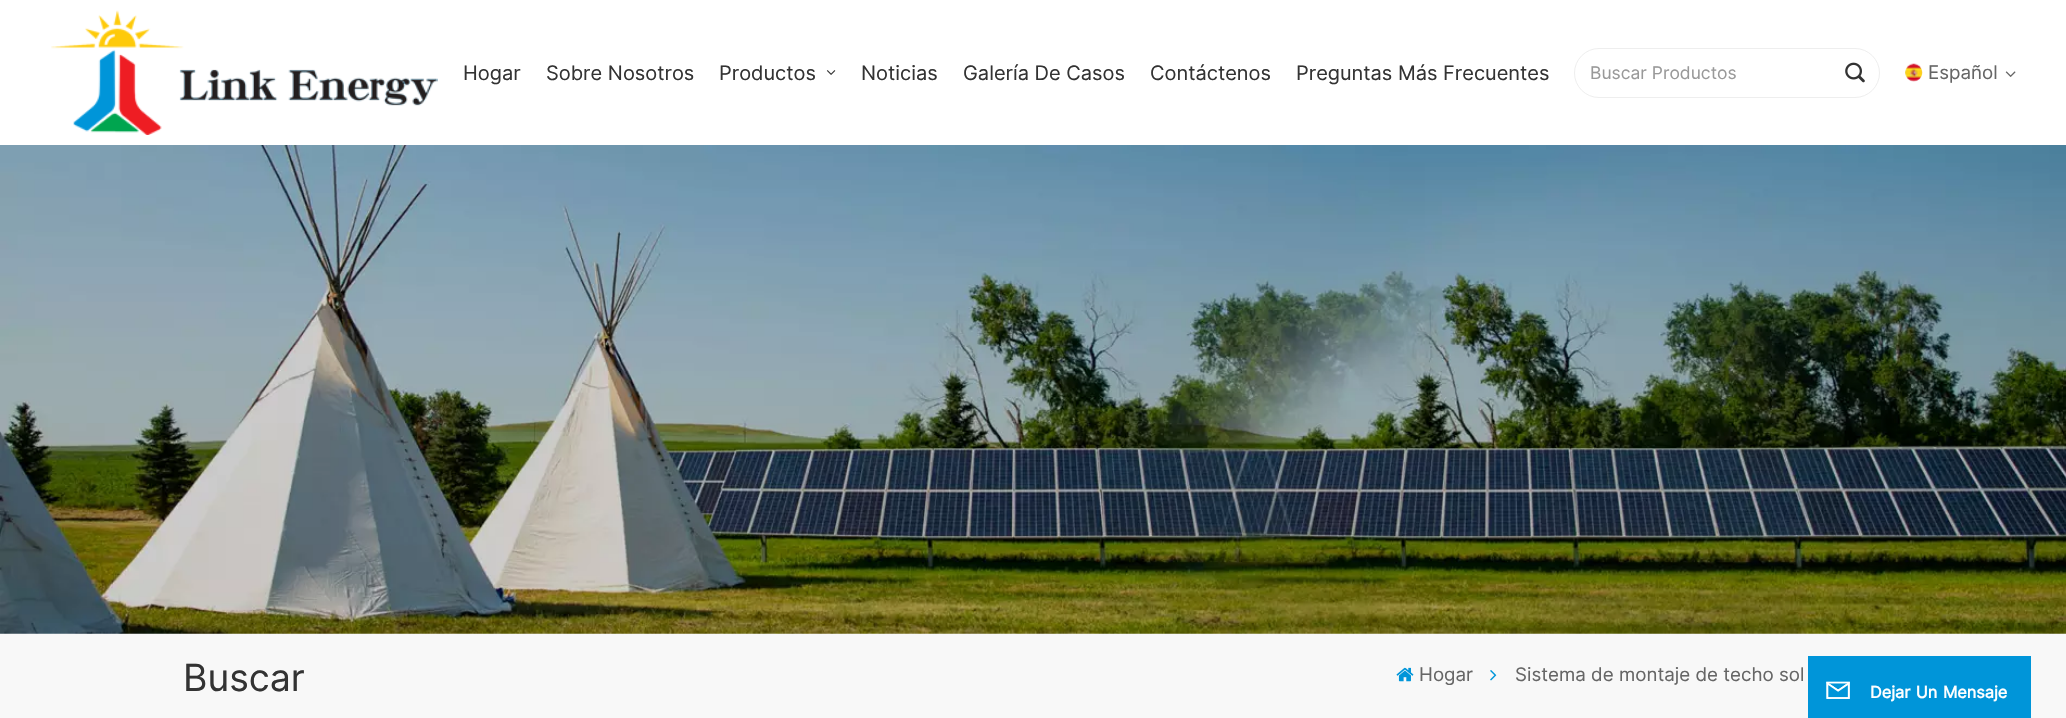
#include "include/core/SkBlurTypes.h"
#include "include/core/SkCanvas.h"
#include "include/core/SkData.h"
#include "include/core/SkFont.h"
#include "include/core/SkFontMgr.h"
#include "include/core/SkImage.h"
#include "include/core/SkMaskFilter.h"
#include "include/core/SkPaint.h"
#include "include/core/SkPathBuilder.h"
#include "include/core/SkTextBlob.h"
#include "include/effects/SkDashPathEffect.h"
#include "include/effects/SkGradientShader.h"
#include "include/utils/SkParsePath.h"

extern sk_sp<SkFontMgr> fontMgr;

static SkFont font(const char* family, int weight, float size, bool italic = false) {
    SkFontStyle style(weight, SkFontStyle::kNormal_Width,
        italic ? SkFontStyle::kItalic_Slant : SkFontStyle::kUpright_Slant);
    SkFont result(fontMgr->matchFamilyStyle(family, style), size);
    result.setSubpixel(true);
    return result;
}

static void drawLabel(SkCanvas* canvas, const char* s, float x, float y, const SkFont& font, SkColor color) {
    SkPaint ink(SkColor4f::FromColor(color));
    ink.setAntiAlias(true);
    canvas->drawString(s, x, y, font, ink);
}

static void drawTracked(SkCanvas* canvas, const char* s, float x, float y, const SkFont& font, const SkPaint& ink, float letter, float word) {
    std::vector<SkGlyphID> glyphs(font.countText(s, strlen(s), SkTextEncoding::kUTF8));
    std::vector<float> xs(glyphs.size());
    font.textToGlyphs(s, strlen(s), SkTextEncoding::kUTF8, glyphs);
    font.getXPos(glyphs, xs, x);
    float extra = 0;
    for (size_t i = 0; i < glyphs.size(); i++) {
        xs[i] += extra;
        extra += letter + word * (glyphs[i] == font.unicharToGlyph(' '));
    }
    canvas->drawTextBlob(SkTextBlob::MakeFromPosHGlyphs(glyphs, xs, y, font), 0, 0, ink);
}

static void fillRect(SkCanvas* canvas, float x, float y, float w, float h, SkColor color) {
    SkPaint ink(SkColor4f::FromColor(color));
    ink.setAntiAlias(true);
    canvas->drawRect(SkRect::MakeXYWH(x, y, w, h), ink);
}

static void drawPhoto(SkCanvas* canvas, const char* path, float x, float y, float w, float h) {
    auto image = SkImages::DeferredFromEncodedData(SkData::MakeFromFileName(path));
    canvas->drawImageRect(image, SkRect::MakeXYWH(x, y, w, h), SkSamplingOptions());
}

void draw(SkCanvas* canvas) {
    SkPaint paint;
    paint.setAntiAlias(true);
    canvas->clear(0xFFFFFFFF);
    drawPhoto(canvas, "assets/img1.png", 51, 10, 387, 125);
    SkFont font1 = font("Inter", 400, 20);
    drawLabel(canvas, "Hogar", 463, 80, font1, 0xFF333333);
    drawLabel(canvas, "Sobre Nosotros", 546, 80, font1, 0xFF333333);
    drawLabel(canvas, "Productos", 719, 80, font1, 0xFF333333);
    drawPhoto(canvas, "assets/img2.png", 826, 70, 10, 5);
    drawLabel(canvas, "Noticias", 861, 80, font1, 0xFF333333);
    drawLabel(canvas, "Galería De Casos", 963, 80, font1, 0xFF333333);
    drawLabel(canvas, "Contáctenos", 1150, 80, font1, 0xFF333333);
    drawLabel(canvas, "Preguntas Más Frecuentes", 1296, 80, font1, 0xFF333333);
    paint.setStroke(true);
    paint.setStrokeWidth(1);
    paint.setColor(0xFFEEEEEE);
    canvas->drawRoundRect(SkRect::MakeXYWH(1574.5f, 48.5f, 305, 49), 24.5f, 24.5f, paint);
    SkFont font2 = font("Inter", 400, 17.5f);
    drawLabel(canvas, "Buscar Productos", 1590, 79, font2, 0xFF999999);
    drawPhoto(canvas, "assets/img3.png", 1845, 62, 20, 21);
    drawPhoto(canvas, "assets/img4.png", 1905, 63, 18, 19);
    SkFont font3 = font("Inter", 400, 18.75f);
    drawLabel(canvas, "Español", 1928, 79, font3, 0xFF666666);
    drawPhoto(canvas, "assets/img5.png", 2005, 71, 11, 6);
    drawPhoto(canvas, "assets/img6.png", 0, 145, 2066, 489);
    fillRect(canvas, 0, 634, 2066, 84, 0xFFF8F8F8);
    SkFont font4 = font("Inter", 400, 37.5f);
    drawLabel(canvas, "Buscar", 183, 691, font4, 0xFF333333);
    drawPhoto(canvas, "assets/img7.png", 1396, 667, 18, 15);
    drawLabel(canvas, "Hogar", 1419, 681, font3, 0xFF666666);
    drawPhoto(canvas, "assets/img8.png", 1490, 670, 7, 11);
    drawLabel(canvas, "Sistema de montaje de techo sol", 1515, 681, font3, 0xFF666666);
    fillRect(canvas, 1808, 656, 223, 62, 0xFF0095D9);
    drawPhoto(canvas, "assets/img9.png", 1826, 681, 24, 18);
    SkFont font5 = font("Inter", 700, 16.25f);
    paint.setStroke(false);
    paint.setColor(0xFFFFFFFF);
    drawTracked(canvas, "Dejar Un Mensaje", 1870, 698, font5, paint, 0, 1);
}
